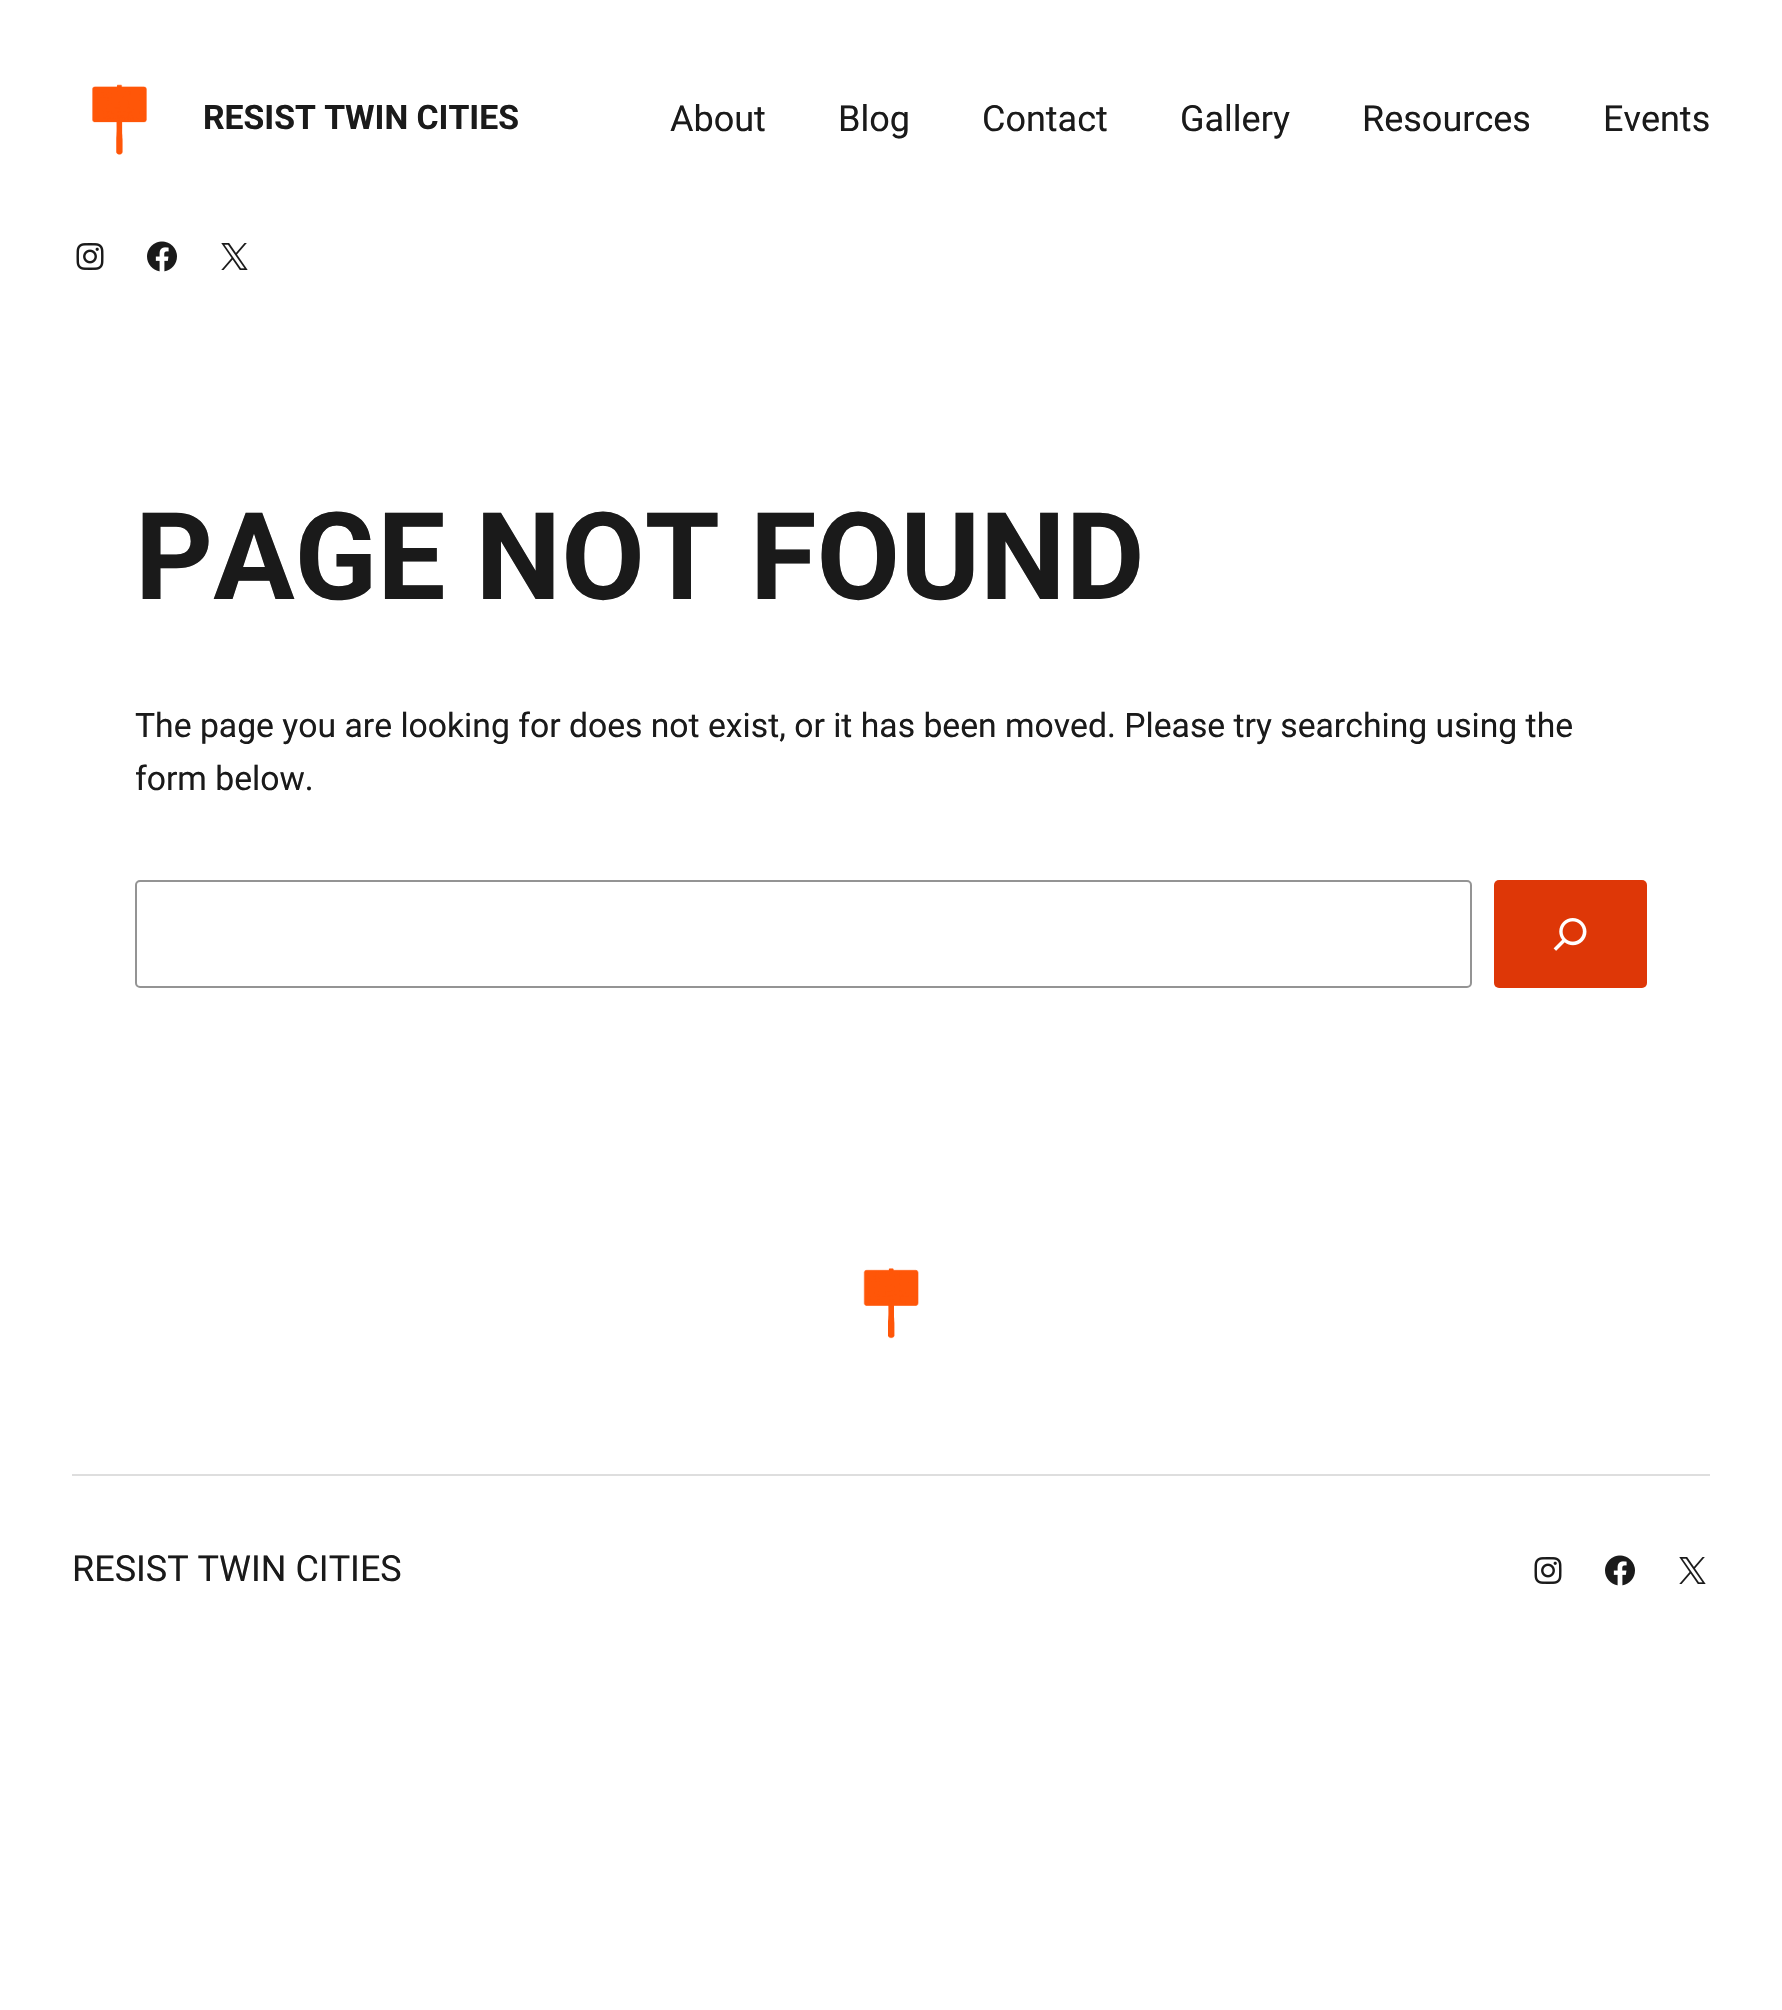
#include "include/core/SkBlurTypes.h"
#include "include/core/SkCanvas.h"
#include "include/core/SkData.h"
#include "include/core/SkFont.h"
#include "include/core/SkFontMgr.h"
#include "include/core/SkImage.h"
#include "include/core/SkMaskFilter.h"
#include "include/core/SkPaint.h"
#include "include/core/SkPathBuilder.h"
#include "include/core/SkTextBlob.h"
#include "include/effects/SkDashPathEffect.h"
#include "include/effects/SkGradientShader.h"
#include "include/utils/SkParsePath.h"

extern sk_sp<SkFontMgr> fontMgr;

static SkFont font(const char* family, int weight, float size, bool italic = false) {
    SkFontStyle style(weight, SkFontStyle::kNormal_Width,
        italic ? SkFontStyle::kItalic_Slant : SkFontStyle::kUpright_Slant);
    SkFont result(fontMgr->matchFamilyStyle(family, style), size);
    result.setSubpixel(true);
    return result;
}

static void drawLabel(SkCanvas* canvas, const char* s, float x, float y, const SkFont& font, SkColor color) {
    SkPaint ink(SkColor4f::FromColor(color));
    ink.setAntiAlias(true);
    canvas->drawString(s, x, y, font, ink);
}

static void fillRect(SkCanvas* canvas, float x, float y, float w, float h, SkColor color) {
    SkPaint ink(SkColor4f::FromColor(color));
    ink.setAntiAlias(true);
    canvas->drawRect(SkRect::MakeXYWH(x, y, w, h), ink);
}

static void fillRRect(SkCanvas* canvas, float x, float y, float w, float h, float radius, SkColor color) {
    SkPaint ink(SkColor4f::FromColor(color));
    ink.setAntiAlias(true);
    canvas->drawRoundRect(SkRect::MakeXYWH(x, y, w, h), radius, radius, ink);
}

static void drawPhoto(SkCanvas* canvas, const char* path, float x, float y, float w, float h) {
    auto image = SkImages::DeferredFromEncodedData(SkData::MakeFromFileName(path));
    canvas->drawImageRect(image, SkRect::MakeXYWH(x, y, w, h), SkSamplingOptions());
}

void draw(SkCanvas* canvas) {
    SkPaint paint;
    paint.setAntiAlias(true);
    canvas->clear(0xFFFFFFFF);
    drawPhoto(canvas, "assets/img1.png", 92, 84, 55, 71);
    SkFont font1 = font("Roboto", 700, 33.7f);
    drawLabel(canvas, "RESIST TWIN CITIES", 203, 129, font1, 0xFF1A1A1A);
    SkFont font2 = font("Roboto", 400, 36);
    drawLabel(canvas, "About", 670, 131, font2, 0xFF1A1A1A);
    drawLabel(canvas, "Blog", 838, 131, font2, 0xFF1A1A1A);
    drawLabel(canvas, "Contact", 982, 131, font2, 0xFF1A1A1A);
    drawLabel(canvas, "Gallery", 1180, 131, font2, 0xFF1A1A1A);
    drawLabel(canvas, "Resources", 1362, 131, font2, 0xFF1A1A1A);
    drawLabel(canvas, "Events", 1603, 131, font2, 0xFF1A1A1A);
    drawPhoto(canvas, "assets/img2.png", 76, 243, 28, 27);
    drawPhoto(canvas, "assets/img3.png", 147, 241, 30, 31);
    drawPhoto(canvas, "assets/img4.png", 221, 243, 27, 27);
    SkFont font3 = font("Roboto", 700, 121.25f);
    drawLabel(canvas, "PAGE NOT FOUND", 135, 599, font3, 0xFF1A1A1A);
    SkFont font4 = font("Roboto", 400, 33.7f);
    drawLabel(canvas, "The page you are looking for does not exist, or it has been moved. Please try searching using the", 135, 737, font4, 0xFF1A1A1A);
    drawLabel(canvas, "form below.", 135, 790, font4, 0xFF1A1A1A);
    paint.setStroke(true);
    paint.setStrokeWidth(2);
    paint.setColor(0xFF949494);
    canvas->drawRoundRect(SkRect::MakeXYWH(136, 881, 1335, 106), 4, 4, paint);
    fillRRect(canvas, 1494, 880, 153, 108, 5, 0xFFDE3707);
    drawPhoto(canvas, "assets/img5.png", 1553, 918, 34, 33);
    drawPhoto(canvas, "assets/img6.png", 863, 1268, 56, 71);
    fillRect(canvas, 72, 1474, 1638, 2, 0xFFDEDEDE);
    drawLabel(canvas, "RESIST TWIN CITIES", 72, 1581, font2, 0xFF1A1A1A);
    drawPhoto(canvas, "assets/img2.png", 1534, 1557, 28, 27);
    drawPhoto(canvas, "assets/img3.png", 1605, 1555, 30, 31);
    drawPhoto(canvas, "assets/img4.png", 1679, 1557, 27, 27);
}
